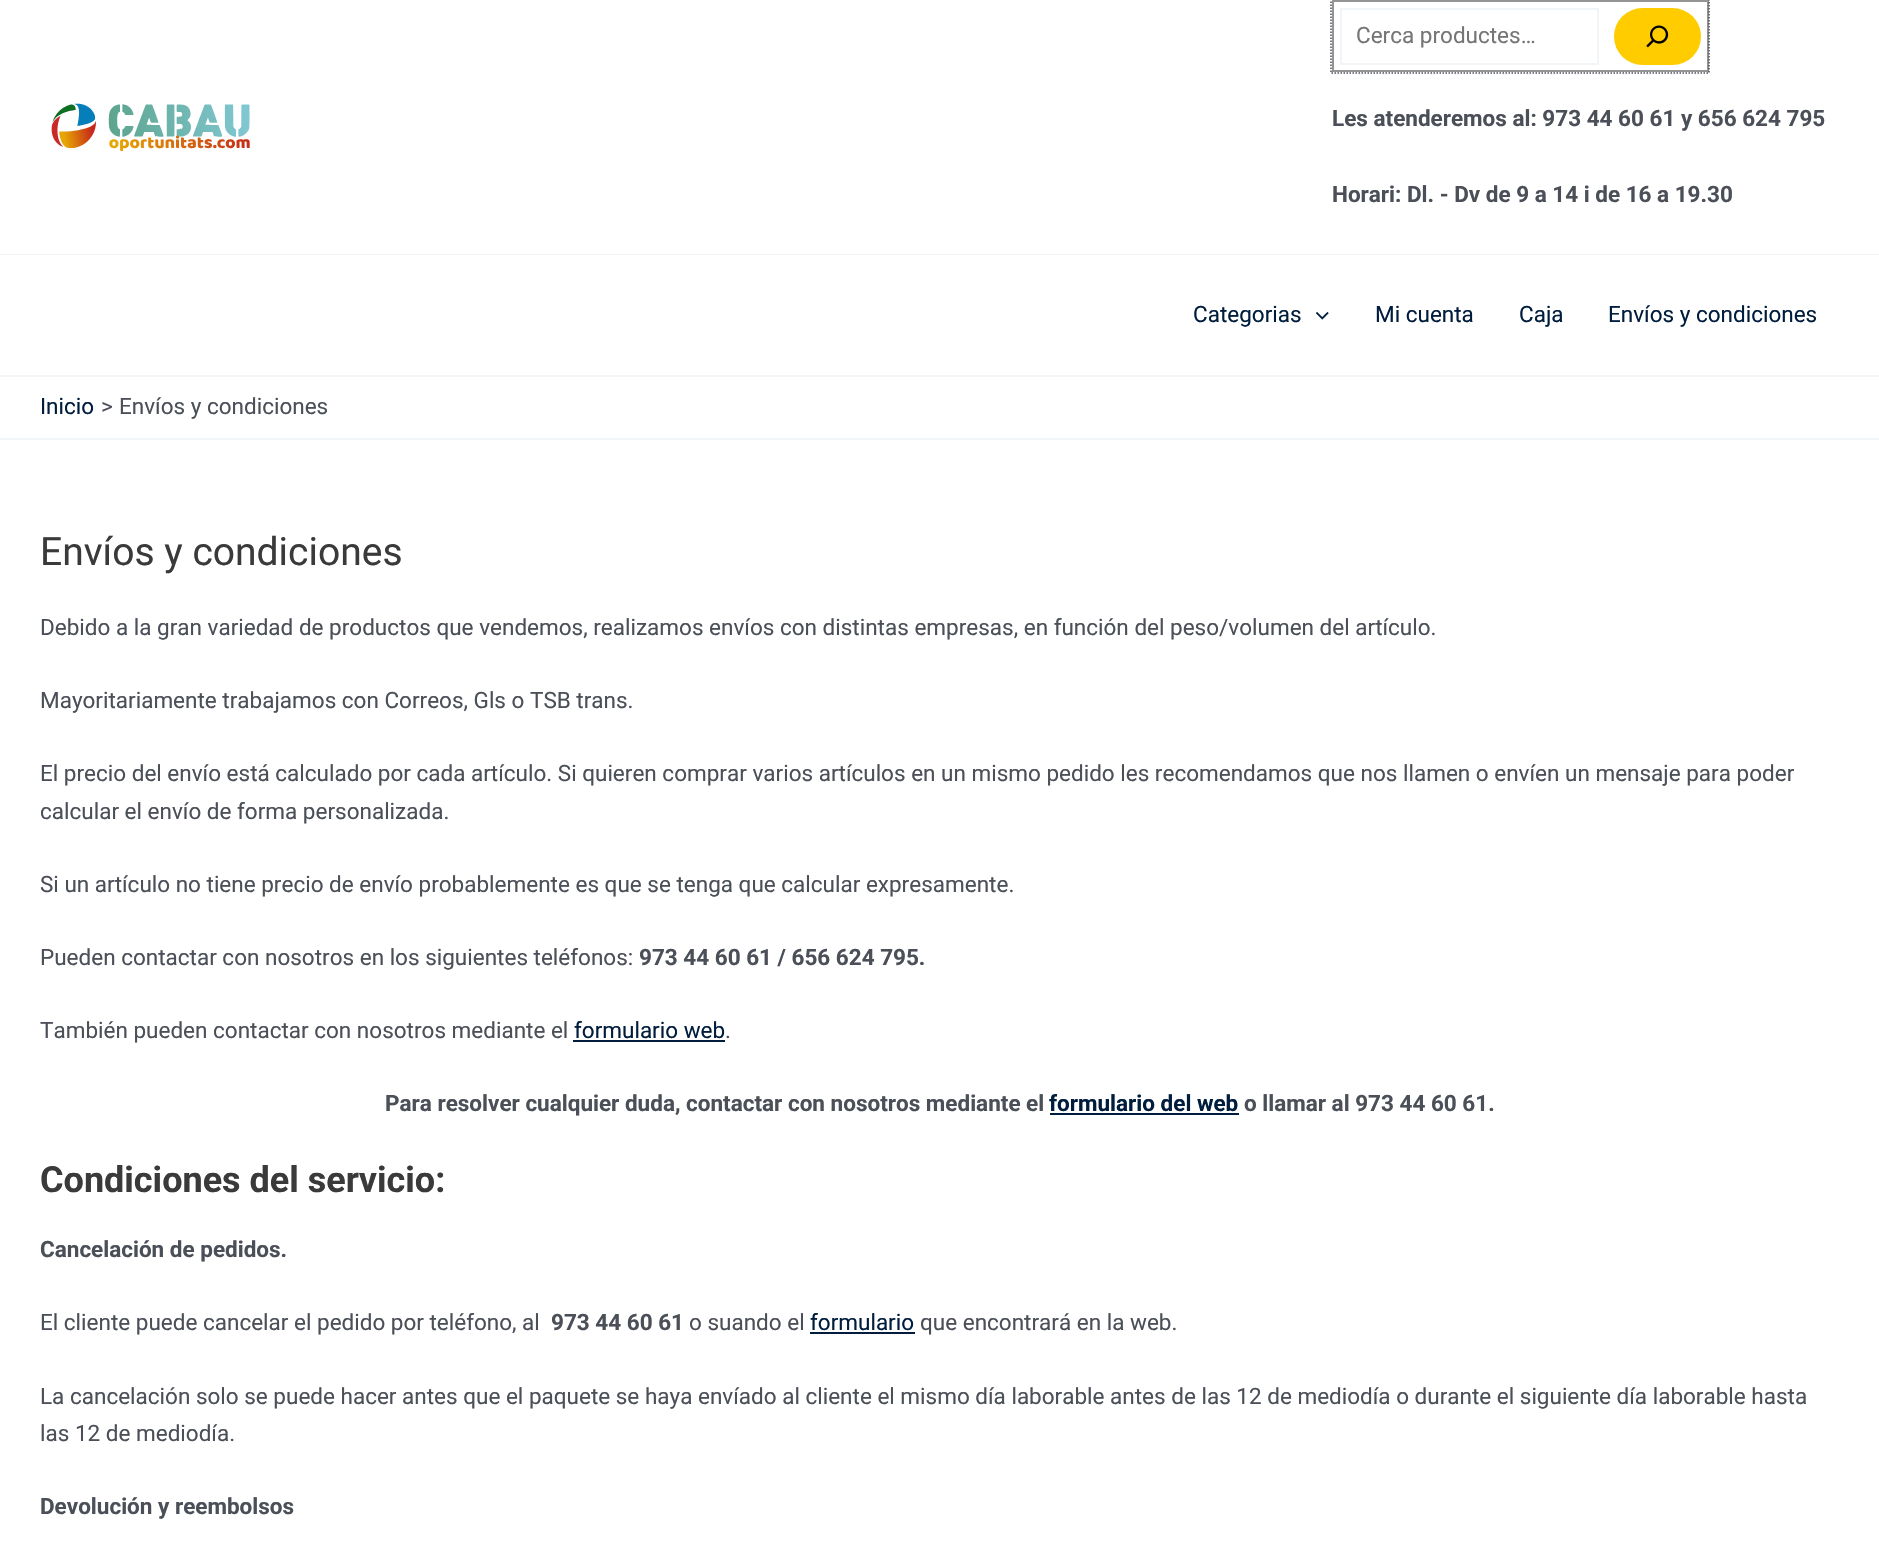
#include "include/core/SkBlurTypes.h"
#include "include/core/SkCanvas.h"
#include "include/core/SkData.h"
#include "include/core/SkFont.h"
#include "include/core/SkFontMgr.h"
#include "include/core/SkImage.h"
#include "include/core/SkMaskFilter.h"
#include "include/core/SkPaint.h"
#include "include/core/SkPathBuilder.h"
#include "include/core/SkTextBlob.h"
#include "include/effects/SkDashPathEffect.h"
#include "include/effects/SkGradientShader.h"
#include "include/utils/SkParsePath.h"

extern sk_sp<SkFontMgr> fontMgr;

static SkFont font(const char* family, int weight, float size, bool italic = false) {
    SkFontStyle style(weight, SkFontStyle::kNormal_Width,
        italic ? SkFontStyle::kItalic_Slant : SkFontStyle::kUpright_Slant);
    SkFont result(fontMgr->matchFamilyStyle(family, style), size);
    result.setSubpixel(true);
    return result;
}

static void drawLabel(SkCanvas* canvas, const char* s, float x, float y, const SkFont& font, SkColor color) {
    SkPaint ink(SkColor4f::FromColor(color));
    ink.setAntiAlias(true);
    canvas->drawString(s, x, y, font, ink);
}

static void fillRect(SkCanvas* canvas, float x, float y, float w, float h, SkColor color) {
    SkPaint ink(SkColor4f::FromColor(color));
    ink.setAntiAlias(true);
    canvas->drawRect(SkRect::MakeXYWH(x, y, w, h), ink);
}

static void fillRRect(SkCanvas* canvas, float x, float y, float w, float h, float radius, SkColor color) {
    SkPaint ink(SkColor4f::FromColor(color));
    ink.setAntiAlias(true);
    canvas->drawRoundRect(SkRect::MakeXYWH(x, y, w, h), radius, radius, ink);
}

static void drawPhoto(SkCanvas* canvas, const char* path, float x, float y, float w, float h) {
    auto image = SkImages::DeferredFromEncodedData(SkData::MakeFromFileName(path));
    canvas->drawImageRect(image, SkRect::MakeXYWH(x, y, w, h), SkSamplingOptions());
}

static SkPath parsePath(const char* data, bool evenOdd = false) {
    SkPath result = *SkParsePath::FromSVGString(data);
    if (evenOdd) result.setFillType(SkPathFillType::kEvenOdd);
    return result;
}

void draw(SkCanvas* canvas) {
    SkPaint paint;
    paint.setAntiAlias(true);
    canvas->clear(0xFFFFFFFF);
    fillRect(canvas, 0, 254, 1879, 1, 0xFFF2F5F7);
    drawPhoto(canvas, "assets/img1.png", 51, 103, 199, 48);
    paint.setStroke(true);
    paint.setStrokeWidth(2);
    paint.setColor(0xFF949494);
    canvas->drawRect(SkRect::MakeXYWH(1333, 1, 375, 70), paint);
    paint.setColor(0xFFF2F5F7);
    canvas->drawRect(SkRect::MakeXYWH(1341, 9, 257, 55), paint);
    SkFont font1 = font("Roboto", 400, 22.5f);
    drawLabel(canvas, "Cerca productes…", 1356, 43, font1, 0xFF757575);
    fillRRect(canvas, 1614, 8, 87, 57, 28.5f, 0xFFFFCC00);
    paint.setStrokeWidth(1.5f);
    paint.setColor(0xFF4B4F58);
    paint.setPathEffect(SkDashPathEffect::Make({{1.5f, 1.5f}}, 0));
    canvas->drawPath(parsePath("M1331-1H1709V73H1331Z"), paint);
    paint.setPathEffect(nullptr);
    drawPhoto(canvas, "assets/img2.png", 1646, 25, 23, 23);
    SkFont font2 = font("Roboto", 700, 22.5f);
    drawLabel(canvas, "Les atenderemos al: 973 44 60 61 y 656 624 795", 1332, 126, font2, 0xFF4B4F58);
    drawLabel(canvas, "Horari: Dl. - Dv de 9 a 14 i de 16 a 19.30", 1332, 202, font2, 0xFF4B4F58);
    fillRect(canvas, 0, 375, 1879, 2, 0xFFF2F5F7);
    drawLabel(canvas, "Categorias", 1193, 322, font1, 0xFF001D3D);
    drawPhoto(canvas, "assets/img3.png", 1316, 312, 13, 8);
    drawLabel(canvas, "Mi cuenta", 1375, 322, font1, 0xFF001D3D);
    drawLabel(canvas, "Caja", 1519, 322, font1, 0xFF001D3D);
    drawLabel(canvas, "Envíos y condiciones", 1608, 322, font1, 0xFF001D3D);
    fillRect(canvas, 0, 438, 1879, 2, 0xFFF2F5F7);
    drawLabel(canvas, "Inicio", 40, 414, font1, 0xFF001D3D);
    drawLabel(canvas, ">", 101, 414, font1, 0xFF4B4F58);
    drawLabel(canvas, "Envíos y condiciones", 119, 414, font1, 0xFF4B4F58);
    SkFont font3 = font("Roboto", 400, 39);
    drawLabel(canvas, "Envíos y condiciones", 40, 565, font3, 0xFF3A3A3A);
    drawLabel(canvas, "Debido a la gran variedad de productos que vendemos, realizamos envíos con distintas empresas, en función del peso/volumen del artículo.", 40, 635, font1, 0xFF4B4F58);
    drawLabel(canvas, "Mayoritariamente trabajamos con Correos, Gls o TSB trans.", 40, 708, font1, 0xFF4B4F58);
    drawLabel(canvas, "El precio del envío está calculado por cada artículo. Si quieren comprar varios artículos en un mismo pedido les recomendamos que nos llamen o envíen un mensaje para poder", 40, 781, font1, 0xFF4B4F58);
    drawLabel(canvas, "calcular el envío de forma personalizada.", 40, 819, font1, 0xFF4B4F58);
    drawLabel(canvas, "Si un artículo no tiene precio de envío probablemente es que se tenga que calcular expresamente.", 40, 892, font1, 0xFF4B4F58);
    drawLabel(canvas, "Pueden contactar con nosotros en los siguientes teléfonos:", 40, 965, font1, 0xFF4B4F58);
    drawLabel(canvas, "973 44 60 61 / 656 624 795.", 639, 965, font2, 0xFF4B4F58);
    drawLabel(canvas, "También pueden contactar con nosotros mediante el", 40, 1038, font1, 0xFF4B4F58);
    drawLabel(canvas, "formulario web", 574, 1038, font1, 0xFF001D3D);
    fillRect(canvas, 573, 1040, 152, 2, 0xFF001D3D);
    drawLabel(canvas, ".", 725, 1038, font1, 0xFF4B4F58);
    drawLabel(canvas, "Para resolver cualquier duda, contactar con nosotros mediante el", 385, 1111, font2, 0xFF4B4F58);
    drawLabel(canvas, "formulario del web", 1049, 1111, font2, 0xFF001D3D);
    fillRect(canvas, 1050, 1113, 189, 2, 0xFF001D3D);
    drawLabel(canvas, "o llamar al 973 44 60 61.", 1244, 1111, font2, 0xFF4B4F58);
    SkFont font4 = font("Roboto", 700, 36);
    drawLabel(canvas, "Condiciones del servicio:", 40, 1192, font4, 0xFF3A3A3A);
    drawLabel(canvas, "Cancelación de pedidos.", 40, 1257, font2, 0xFF4B4F58);
    drawLabel(canvas, "El cliente puede cancelar el pedido por teléfono, al", 40, 1330, font1, 0xFF4B4F58);
    drawLabel(canvas, "973 44 60 61", 551, 1330, font2, 0xFF4B4F58);
    drawLabel(canvas, "o suando el", 689, 1330, font1, 0xFF4B4F58);
    drawLabel(canvas, "formulario", 810, 1330, font1, 0xFF001D3D);
    fillRect(canvas, 810, 1332, 105, 2, 0xFF001D3D);
    drawLabel(canvas, "que encontrará en la web.", 920, 1330, font1, 0xFF4B4F58);
    drawLabel(canvas, "La cancelación solo se puede hacer antes que el paquete se haya envíado al cliente el mismo día laborable antes de las 12 de mediodía o durante el siguiente día laborable hasta", 40, 1404, font1, 0xFF4B4F58);
    drawLabel(canvas, "las 12 de mediodía.", 40, 1441, font1, 0xFF4B4F58);
    drawLabel(canvas, "Devolución y reembolsos", 40, 1514, font2, 0xFF4B4F58);
}
